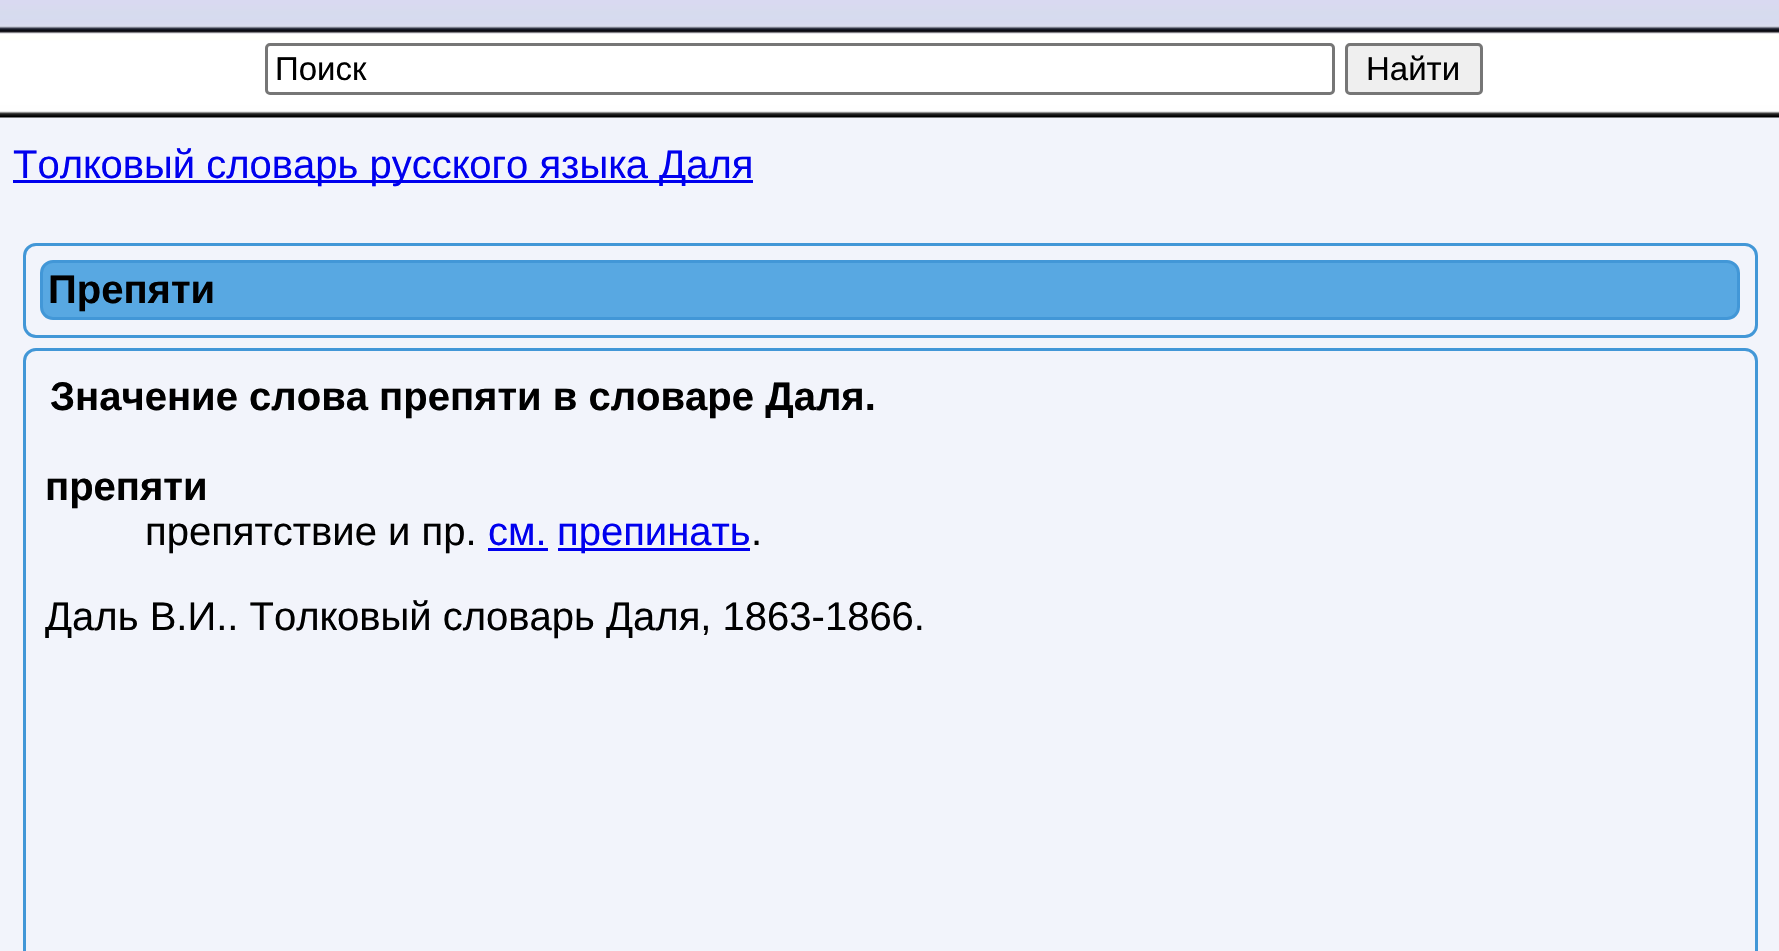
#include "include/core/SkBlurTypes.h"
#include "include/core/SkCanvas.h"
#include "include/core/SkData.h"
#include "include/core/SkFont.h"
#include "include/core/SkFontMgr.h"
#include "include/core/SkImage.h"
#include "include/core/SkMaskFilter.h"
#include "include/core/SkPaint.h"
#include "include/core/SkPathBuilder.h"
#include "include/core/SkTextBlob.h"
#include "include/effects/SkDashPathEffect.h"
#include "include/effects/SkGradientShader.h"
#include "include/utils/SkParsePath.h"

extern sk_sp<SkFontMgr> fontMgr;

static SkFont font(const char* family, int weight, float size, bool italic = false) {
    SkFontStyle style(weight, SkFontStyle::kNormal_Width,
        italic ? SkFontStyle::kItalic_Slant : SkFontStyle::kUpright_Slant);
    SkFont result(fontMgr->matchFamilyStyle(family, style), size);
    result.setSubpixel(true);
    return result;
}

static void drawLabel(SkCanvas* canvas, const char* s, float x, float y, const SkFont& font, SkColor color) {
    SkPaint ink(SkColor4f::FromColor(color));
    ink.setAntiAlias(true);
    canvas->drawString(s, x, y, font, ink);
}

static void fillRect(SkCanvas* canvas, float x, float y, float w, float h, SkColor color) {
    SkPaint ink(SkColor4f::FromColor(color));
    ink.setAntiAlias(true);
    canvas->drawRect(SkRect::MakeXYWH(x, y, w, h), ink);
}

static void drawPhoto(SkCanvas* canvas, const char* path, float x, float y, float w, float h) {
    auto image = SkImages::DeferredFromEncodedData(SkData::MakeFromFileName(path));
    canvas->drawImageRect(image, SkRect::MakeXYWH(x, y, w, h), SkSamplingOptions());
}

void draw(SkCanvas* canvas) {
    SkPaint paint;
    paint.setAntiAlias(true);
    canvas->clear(0xFFF2F4FB);
    drawPhoto(canvas, "assets/img1.png", 0, 0, 1779, 118);
    paint.setStroke(true);
    paint.setStrokeWidth(3);
    paint.setColor(0xFF767676);
    canvas->drawRoundRect(SkRect::MakeXYWH(266.5f, 44.5f, 1067, 49), 3.5f, 3.5f, paint);
    SkFont font1 = font("Liberation Sans", 400, 33);
    drawLabel(canvas, "Поиск", 275, 80, font1, 0xFF000000);
    paint.setStroke(false);
    paint.setColor(0xFFEFEFEF);
    canvas->drawRoundRect(SkRect::MakeXYWH(1346.5f, 44.5f, 135, 49), 3.5f, 3.5f, paint);
    paint.setStroke(true);
    paint.setColor(0xFF767676);
    canvas->drawRoundRect(SkRect::MakeXYWH(1346.5f, 44.5f, 135, 49), 3.5f, 3.5f, paint);
    drawLabel(canvas, "Найти", 1366, 80, font1, 0xFF000000);
    fillRect(canvas, 13, 180, 740, 3, 0xFF0000EE);
    SkFont font2 = font("Liberation Sans", 400, 40);
    drawLabel(canvas, "Толковый словарь русского языка Даля", 13, 178, font2, 0xFF0000EE);
    paint.setColor(0xFF4297D7);
    canvas->drawRoundRect(SkRect::MakeXYWH(24.5f, 244.5f, 1732, 92), 11.5f, 11.5f, paint);
    paint.setStroke(false);
    paint.setColor(0xFF58A8E2);
    canvas->drawRoundRect(SkRect::MakeXYWH(41.5f, 261.5f, 1697, 57), 11.5f, 11.5f, paint);
    paint.setStroke(true);
    paint.setColor(0xFF4297D7);
    canvas->drawRoundRect(SkRect::MakeXYWH(41.5f, 261.5f, 1697, 57), 11.5f, 11.5f, paint);
    SkFont font3 = font("Liberation Sans", 700, 40);
    drawLabel(canvas, "Препяти", 48, 303, font3, 0xFF000000);
    canvas->drawRoundRect(SkRect::MakeXYWH(24.5f, 349.5f, 1732, 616), 11.5f, 11.5f, paint);
    drawLabel(canvas, "Значение слова препяти в словаре Даля.", 50, 410, font3, 0xFF000000);
    drawLabel(canvas, "препяти", 45, 500, font3, 0xFF000000);
    drawLabel(canvas, "препятствие и пр.", 145, 545, font2, 0xFF000000);
    drawLabel(canvas, "см.", 488, 545, font2, 0xFF0000EE);
    fillRect(canvas, 488, 548, 60, 3, 0xFF0000EE);
    fillRect(canvas, 558, 548, 192, 3, 0xFF0000EE);
    drawLabel(canvas, "препинать", 557, 545, font2, 0xFF0000EE);
    drawLabel(canvas, ".", 751, 545, font2, 0xFF000000);
    drawLabel(canvas, "Даль В.И.. Толковый словарь Даля, 1863-1866.", 45, 630, font2, 0xFF000000);
}
